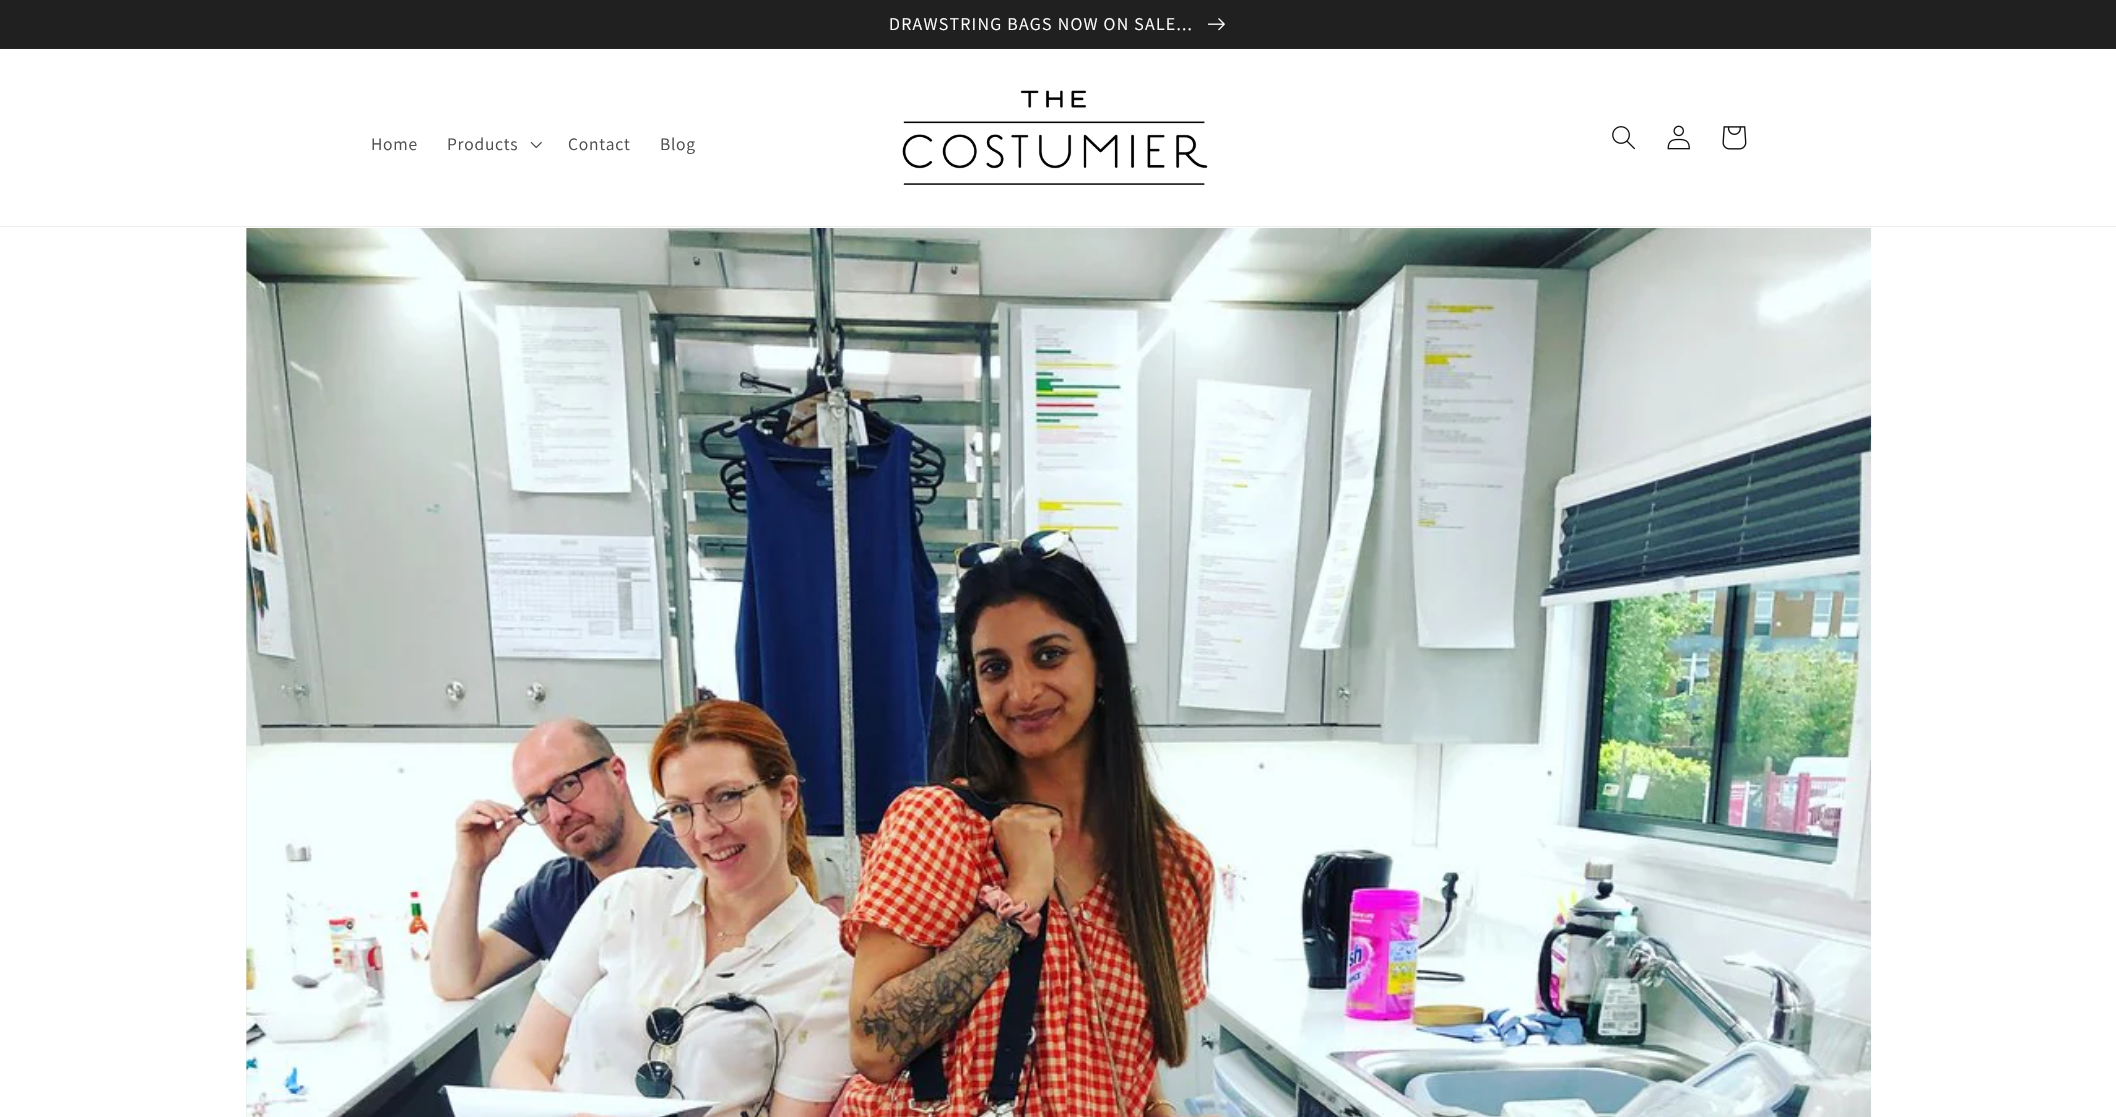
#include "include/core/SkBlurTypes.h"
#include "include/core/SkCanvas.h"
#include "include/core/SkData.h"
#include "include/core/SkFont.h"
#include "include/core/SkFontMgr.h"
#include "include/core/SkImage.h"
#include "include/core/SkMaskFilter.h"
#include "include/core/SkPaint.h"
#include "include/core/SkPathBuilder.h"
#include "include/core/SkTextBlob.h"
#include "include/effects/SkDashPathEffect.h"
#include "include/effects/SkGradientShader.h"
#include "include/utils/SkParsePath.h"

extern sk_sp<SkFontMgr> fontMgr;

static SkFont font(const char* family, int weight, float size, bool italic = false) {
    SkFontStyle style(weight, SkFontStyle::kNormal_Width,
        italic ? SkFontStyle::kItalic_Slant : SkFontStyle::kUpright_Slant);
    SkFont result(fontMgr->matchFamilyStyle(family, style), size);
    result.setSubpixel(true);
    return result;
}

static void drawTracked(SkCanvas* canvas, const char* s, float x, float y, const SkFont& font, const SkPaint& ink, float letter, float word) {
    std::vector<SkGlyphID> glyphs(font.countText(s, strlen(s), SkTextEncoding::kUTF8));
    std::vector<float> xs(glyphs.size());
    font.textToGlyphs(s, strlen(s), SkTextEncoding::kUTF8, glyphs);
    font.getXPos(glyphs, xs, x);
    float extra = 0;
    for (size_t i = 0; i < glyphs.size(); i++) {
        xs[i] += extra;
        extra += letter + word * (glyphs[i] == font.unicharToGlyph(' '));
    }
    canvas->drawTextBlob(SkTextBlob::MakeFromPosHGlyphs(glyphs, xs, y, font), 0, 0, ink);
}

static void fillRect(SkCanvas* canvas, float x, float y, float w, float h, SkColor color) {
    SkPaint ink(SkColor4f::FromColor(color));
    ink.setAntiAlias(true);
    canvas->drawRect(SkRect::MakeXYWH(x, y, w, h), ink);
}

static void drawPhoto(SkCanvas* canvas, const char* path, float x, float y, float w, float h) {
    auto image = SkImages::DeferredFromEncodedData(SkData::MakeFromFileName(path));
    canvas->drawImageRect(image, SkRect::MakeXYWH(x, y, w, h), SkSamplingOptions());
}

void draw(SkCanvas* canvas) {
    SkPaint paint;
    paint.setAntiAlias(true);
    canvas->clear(0xFFFFFFFF);
    fillRect(canvas, 0, 48, 2116, 1, 0xFF252525);
    fillRect(canvas, 0, 0, 2116, 48, 0xFF202020);
    SkFont font1 = font("Assistant", 400, 17.9f);
    paint.setColor(0xFFFFFFFF);
    drawTracked(canvas, "DRAWSTRING BAGS NOW ON SALE...", 889, 30, font1, paint, 1.25f, 0);
    drawPhoto(canvas, "assets/img1.png", 1208, 18, 17, 13);
    fillRect(canvas, 0, 226, 2116, 1, 0xFFECECEC);
    SkFont font2 = font("Assistant", 400, 17.5f);
    paint.setColor(0xFF4D4D4D);
    drawTracked(canvas, "Home", 371, 150, font2, paint, 0.75f, 0);
    drawTracked(canvas, "Products", 447, 150, font2, paint, 0.75f, 0);
    drawPhoto(canvas, "assets/img2.png", 530, 141, 12, 8);
    drawTracked(canvas, "Contact", 568, 150, font2, paint, 0.75f, 0);
    drawTracked(canvas, "Blog", 660, 150, font2, paint, 0.75f, 0);
    drawPhoto(canvas, "assets/img3.png", 902, 90, 306, 95);
    drawPhoto(canvas, "assets/img4.png", 1612, 126, 23, 24);
    drawPhoto(canvas, "assets/img5.png", 1667, 125, 23, 25);
    drawPhoto(canvas, "assets/img6.png", 1722, 126, 25, 24);
    fillRect(canvas, 246, 228, 1, 889, 0xFFE8E8E8);
    drawPhoto(canvas, "assets/img7.png", 246, 228, 1626, 889);
}
